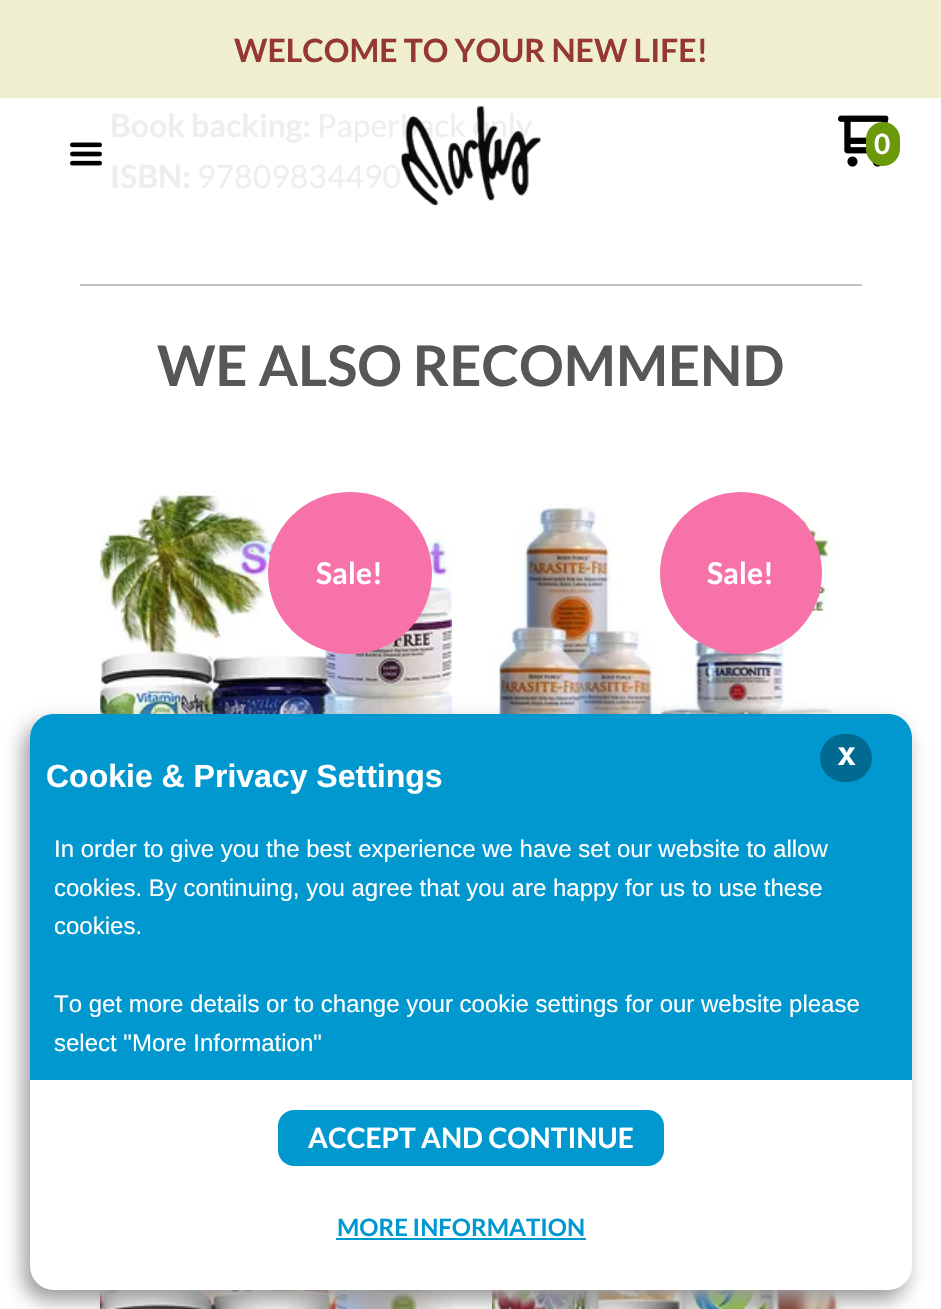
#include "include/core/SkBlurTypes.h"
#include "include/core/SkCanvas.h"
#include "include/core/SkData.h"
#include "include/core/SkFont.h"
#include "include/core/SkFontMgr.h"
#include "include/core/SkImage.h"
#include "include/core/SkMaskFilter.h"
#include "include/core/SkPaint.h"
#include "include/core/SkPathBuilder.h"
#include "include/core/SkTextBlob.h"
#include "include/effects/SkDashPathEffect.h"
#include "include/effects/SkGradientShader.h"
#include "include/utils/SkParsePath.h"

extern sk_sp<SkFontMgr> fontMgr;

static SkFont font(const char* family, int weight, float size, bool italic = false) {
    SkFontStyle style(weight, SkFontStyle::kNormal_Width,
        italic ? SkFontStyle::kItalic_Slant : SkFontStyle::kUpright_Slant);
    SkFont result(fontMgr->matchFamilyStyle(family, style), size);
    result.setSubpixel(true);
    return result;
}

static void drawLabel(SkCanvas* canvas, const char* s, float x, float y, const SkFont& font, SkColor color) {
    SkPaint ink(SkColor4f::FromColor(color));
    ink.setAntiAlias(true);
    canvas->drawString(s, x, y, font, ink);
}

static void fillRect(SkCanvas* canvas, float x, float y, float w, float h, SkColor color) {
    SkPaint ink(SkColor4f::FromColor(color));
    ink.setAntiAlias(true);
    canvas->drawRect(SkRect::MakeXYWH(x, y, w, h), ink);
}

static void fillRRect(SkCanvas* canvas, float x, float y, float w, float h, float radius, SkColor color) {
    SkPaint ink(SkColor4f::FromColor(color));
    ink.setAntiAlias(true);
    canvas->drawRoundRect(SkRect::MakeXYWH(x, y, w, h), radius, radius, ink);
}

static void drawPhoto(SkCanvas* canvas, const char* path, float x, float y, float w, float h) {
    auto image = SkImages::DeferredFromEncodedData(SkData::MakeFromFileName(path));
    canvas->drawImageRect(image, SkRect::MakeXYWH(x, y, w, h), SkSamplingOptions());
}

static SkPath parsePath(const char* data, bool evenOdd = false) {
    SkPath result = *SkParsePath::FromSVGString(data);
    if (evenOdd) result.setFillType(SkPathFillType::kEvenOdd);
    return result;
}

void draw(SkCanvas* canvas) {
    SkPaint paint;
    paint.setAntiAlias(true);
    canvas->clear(0xFFFFFFFF);
    fillRect(canvas, 0, 0, 941, 98, 0xFFEFEFD0);
    SkFont font1 = font("Lato", 700, 32);
    drawLabel(canvas, "WELCOME TO YOUR NEW LIFE!", 234, 62, font1, 0xFF953734);
    drawPhoto(canvas, "assets/img1.png", 70, 142, 32, 24);
    SkFont font2 = font("Lato", 400, 32);
    drawLabel(canvas, "Paperback only", 317, 137, font2, 0xFFEEEEEE);
    drawPhoto(canvas, "assets/img2.png", 401, 106, 140, 100);
    drawPhoto(canvas, "assets/img3.png", 838, 115, 51, 52);
    fillRRect(canvas, 866, 122, 34, 44, 17, 0xFF6A9A0A);
    SkFont font3 = font("Lato", 700, 28);
    drawLabel(canvas, "0", 874, 154, font3, 0xFFFFFFFF);
    drawLabel(canvas, "Book backing:", 110, 137, font1, 0xFFEEEEEE);
    drawLabel(canvas, "ISBN:", 110, 188, font1, 0xFFEEEEEE);
    drawLabel(canvas, "97809834490", 197, 188, font2, 0xFFEEEEEE);
    fillRect(canvas, 80, 284, 782, 2, 0xFFC2C2C2);
    SkFont font4 = font("Lato", 700, 56);
    drawLabel(canvas, "WE ALSO RECOMMEND", 157, 386, font4, 0xFF575757);
    drawPhoto(canvas, "assets/img4.png", 100, 491, 352, 223);
    fillRRect(canvas, 268, 492, 164, 162, 81, 0xFFF772A9);
    SkFont font5 = font("Lato", 700, 30);
    drawLabel(canvas, "Sale!", 316, 584, font5, 0xFFFFFFFF);
    drawPhoto(canvas, "assets/img5.png", 492, 504, 345, 210);
    paint.setColor(0xFFF772A9);
    canvas->drawCircle(741, 573, 81, paint);
    drawLabel(canvas, "Sale!", 707, 584, font5, 0xFFFFFFFF);
    drawPhoto(canvas, "assets/img6.png", 100, 1290, 352, 19);
    drawPhoto(canvas, "assets/img7.png", 492, 1290, 350, 19);
    paint.setColor(0xFF999999);
    paint.setMaskFilter(SkMaskFilter::MakeBlur(kNormal_SkBlurStyle, 10));
    canvas->drawRoundRect(SkRect::MakeXYWH(24, 724, 882, 576), 24, 24, paint);
    paint.setMaskFilter(nullptr);
    fillRRect(canvas, 30, 714, 882, 576, 24, 0xFFFFFFFF);
    paint.setColor(0xFF0098CF);
    canvas->drawPath(parsePath("M54 714H888C901.5 714 912 724.5 912 738V1080H30V738C30 724.5 40.5 714 54 714Z"), paint);
    fillRRect(canvas, 820, 734, 52, 48, 24, 0xFF006A91);
    SkFont font6 = font("DejaVu Sans Mono", 700, 32);
    drawLabel(canvas, "x", 837, 765, font6, 0xFFFFFFFF);
    SkFont font7 = font("Liberation Sans", 700, 32);
    drawLabel(canvas, "Cookie & Privacy Settings", 46, 787, font7, 0xFFFFFFFF);
    SkFont font8 = font("Liberation Sans", 400, 24);
    drawLabel(canvas, "In order to give you the best experience we have set our website to allow", 54, 857, font8, 0xFFFFFFFF);
    drawLabel(canvas, "cookies. By continuing, you agree that you are happy for us to use these", 54, 896, font8, 0xFFFFFFFF);
    drawLabel(canvas, "cookies.", 54, 934, font8, 0xFFFFFFFF);
    drawLabel(canvas, "To get more details or to change your cookie settings for our website please", 54, 1012, font8, 0xFFFFFFFF);
    drawLabel(canvas, "select \"More Information\"", 54, 1051, font8, 0xFFFFFFFF);
    fillRRect(canvas, 278, 1110, 386, 56, 16, 0xFF0098CF);
    drawLabel(canvas, "ACCEPT AND CONTINUE", 308, 1148, font3, 0xFFFFFFFF);
    SkFont font9 = font("Lato", 700, 24);
    drawLabel(canvas, "MORE INFORMATION", 337, 1236, font9, 0xFF0098CF);
    fillRect(canvas, 336, 1238, 250, 2, 0xFF0098CF);
}
